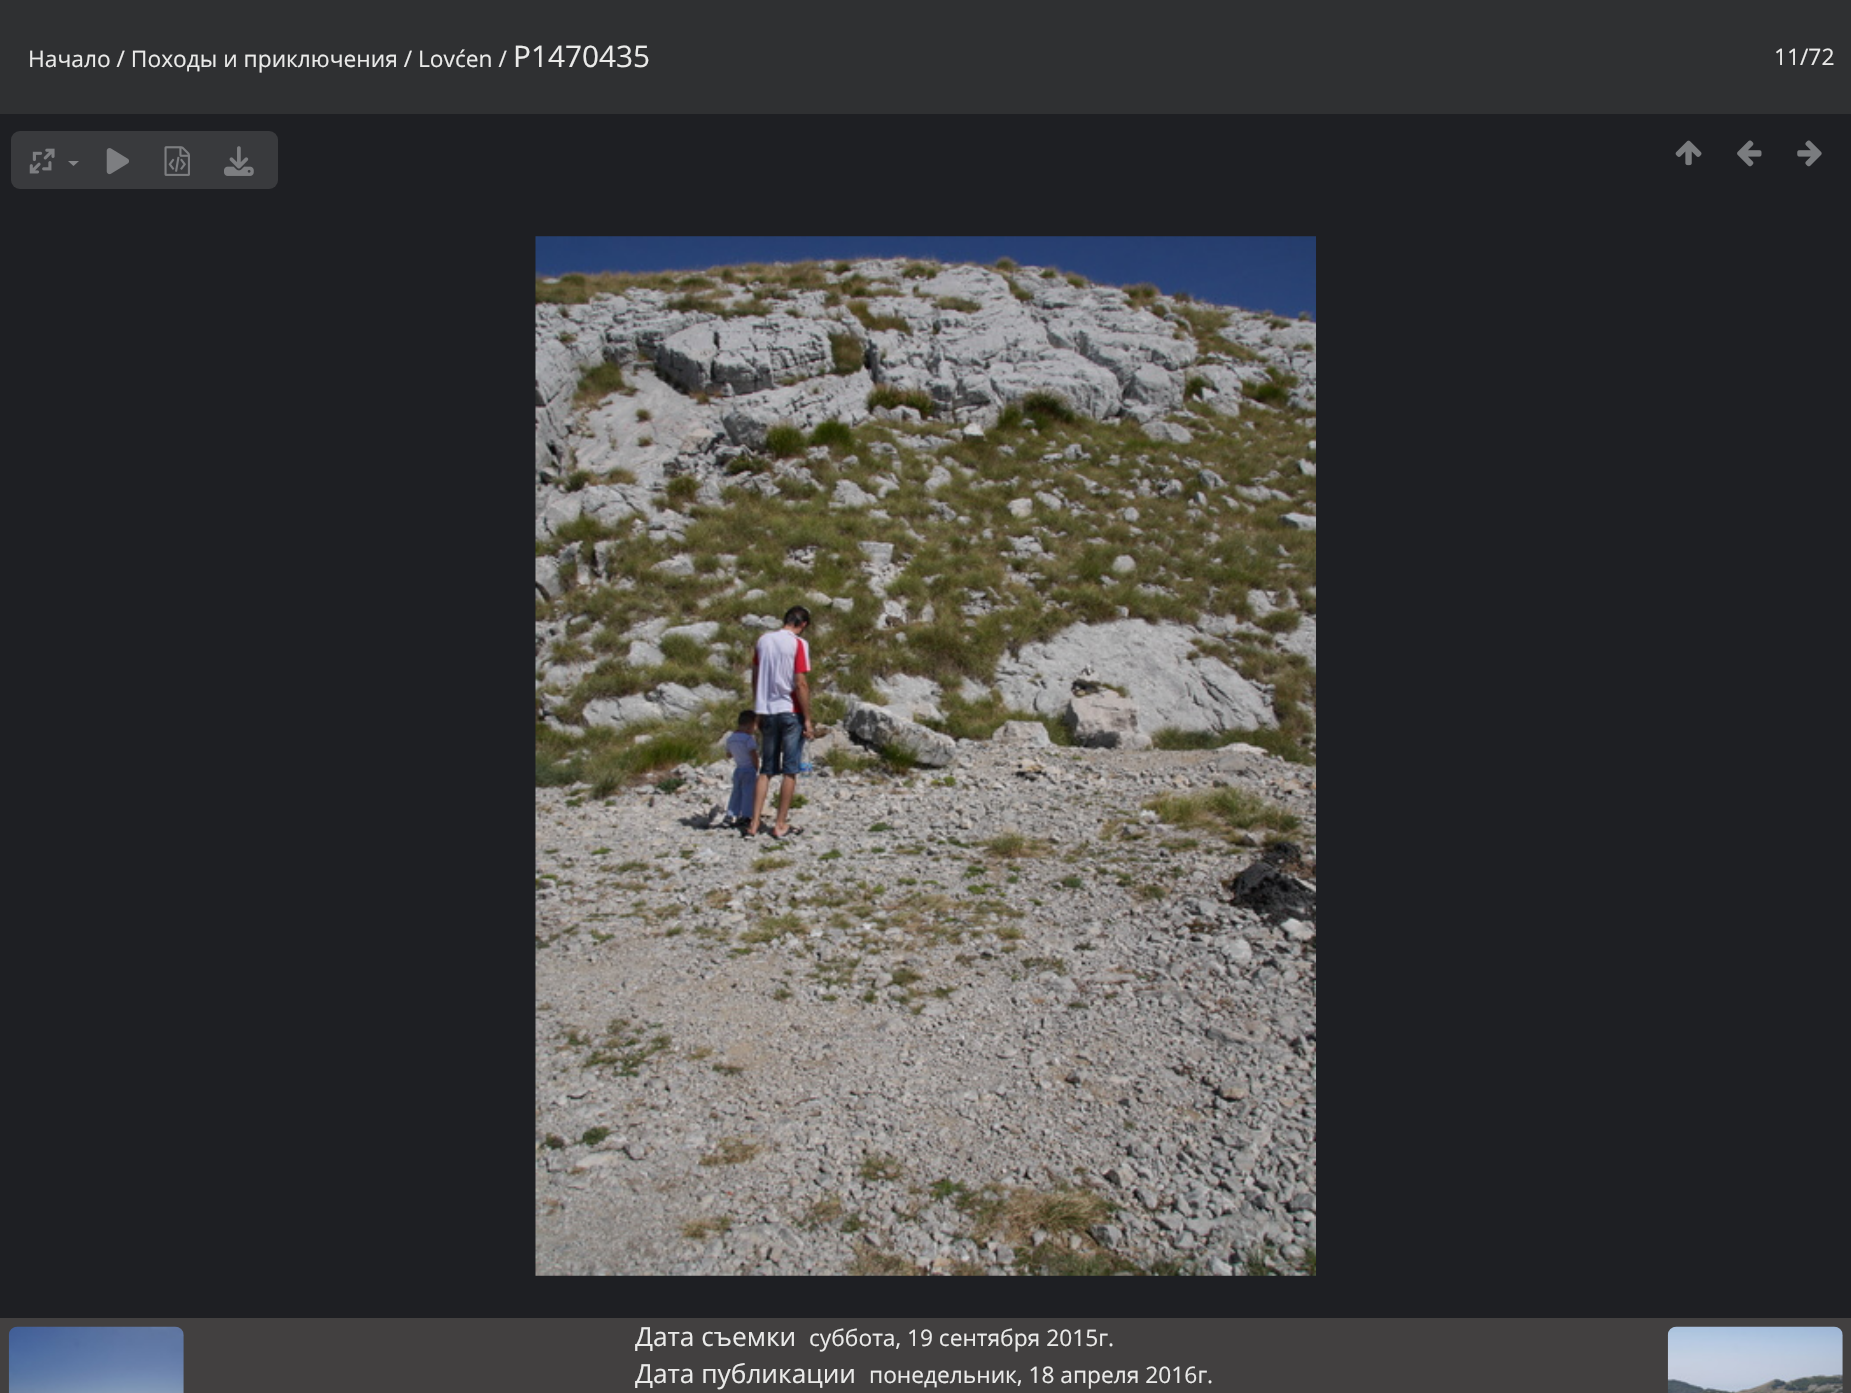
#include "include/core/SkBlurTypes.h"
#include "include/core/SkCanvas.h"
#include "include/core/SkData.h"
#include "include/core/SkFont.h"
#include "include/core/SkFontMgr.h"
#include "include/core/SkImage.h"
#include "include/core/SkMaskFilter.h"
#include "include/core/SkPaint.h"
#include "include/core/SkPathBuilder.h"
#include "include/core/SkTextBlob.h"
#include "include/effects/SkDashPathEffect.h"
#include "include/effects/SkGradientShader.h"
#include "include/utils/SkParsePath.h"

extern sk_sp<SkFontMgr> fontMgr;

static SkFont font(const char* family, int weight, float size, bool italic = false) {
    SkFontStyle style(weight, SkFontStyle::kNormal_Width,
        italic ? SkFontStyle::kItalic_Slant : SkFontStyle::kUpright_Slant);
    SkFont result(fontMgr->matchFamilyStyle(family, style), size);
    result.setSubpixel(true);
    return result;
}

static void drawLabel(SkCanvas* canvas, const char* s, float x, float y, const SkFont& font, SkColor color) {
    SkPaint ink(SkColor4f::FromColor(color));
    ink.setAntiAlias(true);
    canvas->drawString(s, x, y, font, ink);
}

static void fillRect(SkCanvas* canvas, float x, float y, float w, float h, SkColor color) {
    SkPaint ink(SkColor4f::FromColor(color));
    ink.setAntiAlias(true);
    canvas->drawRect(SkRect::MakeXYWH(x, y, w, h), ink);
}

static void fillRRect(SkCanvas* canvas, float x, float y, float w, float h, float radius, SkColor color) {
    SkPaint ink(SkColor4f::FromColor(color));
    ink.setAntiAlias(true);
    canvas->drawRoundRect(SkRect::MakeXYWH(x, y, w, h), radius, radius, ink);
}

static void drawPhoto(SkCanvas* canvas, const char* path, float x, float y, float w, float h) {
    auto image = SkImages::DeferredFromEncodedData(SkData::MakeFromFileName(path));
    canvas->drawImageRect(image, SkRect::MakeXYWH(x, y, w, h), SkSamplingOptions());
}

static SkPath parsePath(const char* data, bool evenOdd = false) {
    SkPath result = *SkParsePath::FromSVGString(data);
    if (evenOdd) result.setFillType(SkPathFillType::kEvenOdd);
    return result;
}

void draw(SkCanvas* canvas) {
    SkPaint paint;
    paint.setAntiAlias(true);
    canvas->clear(0xFF1E1F23);
    fillRect(canvas, 0, 0, 1851, 114, 0xFF2F3032);
    SkFont font1 = font("Open Sans", 400, 22.75f);
    drawLabel(canvas, "Начало / Походы и приключения / Lovćen /", 28, 67, font1, 0xFFEAEAE9);
    SkFont font2 = font("Open Sans", 400, 29.75f);
    drawLabel(canvas, "P1470435", 513, 67, font2, 0xFFEAEAE9);
    drawLabel(canvas, "11/72", 1774, 65, font1, 0xFFEAEAE9);
    fillRRect(canvas, 11, 131, 267, 58, 9, 0xFF393A3D);
    drawPhoto(canvas, "assets/img1.png", 29, 148, 26, 26);
    paint.setColor(0xFF848588);
    canvas->drawPath(parsePath("M68 161H79L73.5 166Z"), paint);
    drawPhoto(canvas, "assets/img2.png", 106, 148, 23, 27);
    drawPhoto(canvas, "assets/img3.png", 164, 146, 26, 30);
    drawPhoto(canvas, "assets/img4.png", 224, 146, 30, 30);
    drawPhoto(canvas, "assets/img5.png", 1675, 140, 27, 26);
    drawPhoto(canvas, "assets/img6.png", 1737, 140, 25, 27);
    drawPhoto(canvas, "assets/img7.png", 1797, 140, 25, 27);
    drawPhoto(canvas, "assets/img8.png", 535, 236, 781, 1040);
    fillRect(canvas, 0, 1318, 1851, 75, 0xFF424040);
    drawPhoto(canvas, "assets/img9.png", 8, 1326, 176, 67);
    drawPhoto(canvas, "assets/img10.png", 1667, 1326, 176, 67);
    SkFont font3 = font("Open Sans", 400, 26.25f);
    drawLabel(canvas, "Дата съемки", 635, 1346, font3, 0xFFEAEAE9);
    drawLabel(canvas, "суббота, 19 сентября 2015 г.", 809, 1346, font1, 0xFFEAEAE9);
    drawLabel(canvas, "Дата публикации", 635, 1383, font3, 0xFFEAEAE9);
    drawLabel(canvas, "понедельник, 18 апреля 2016 г.", 869, 1383, font1, 0xFFEAEAE9);
}
